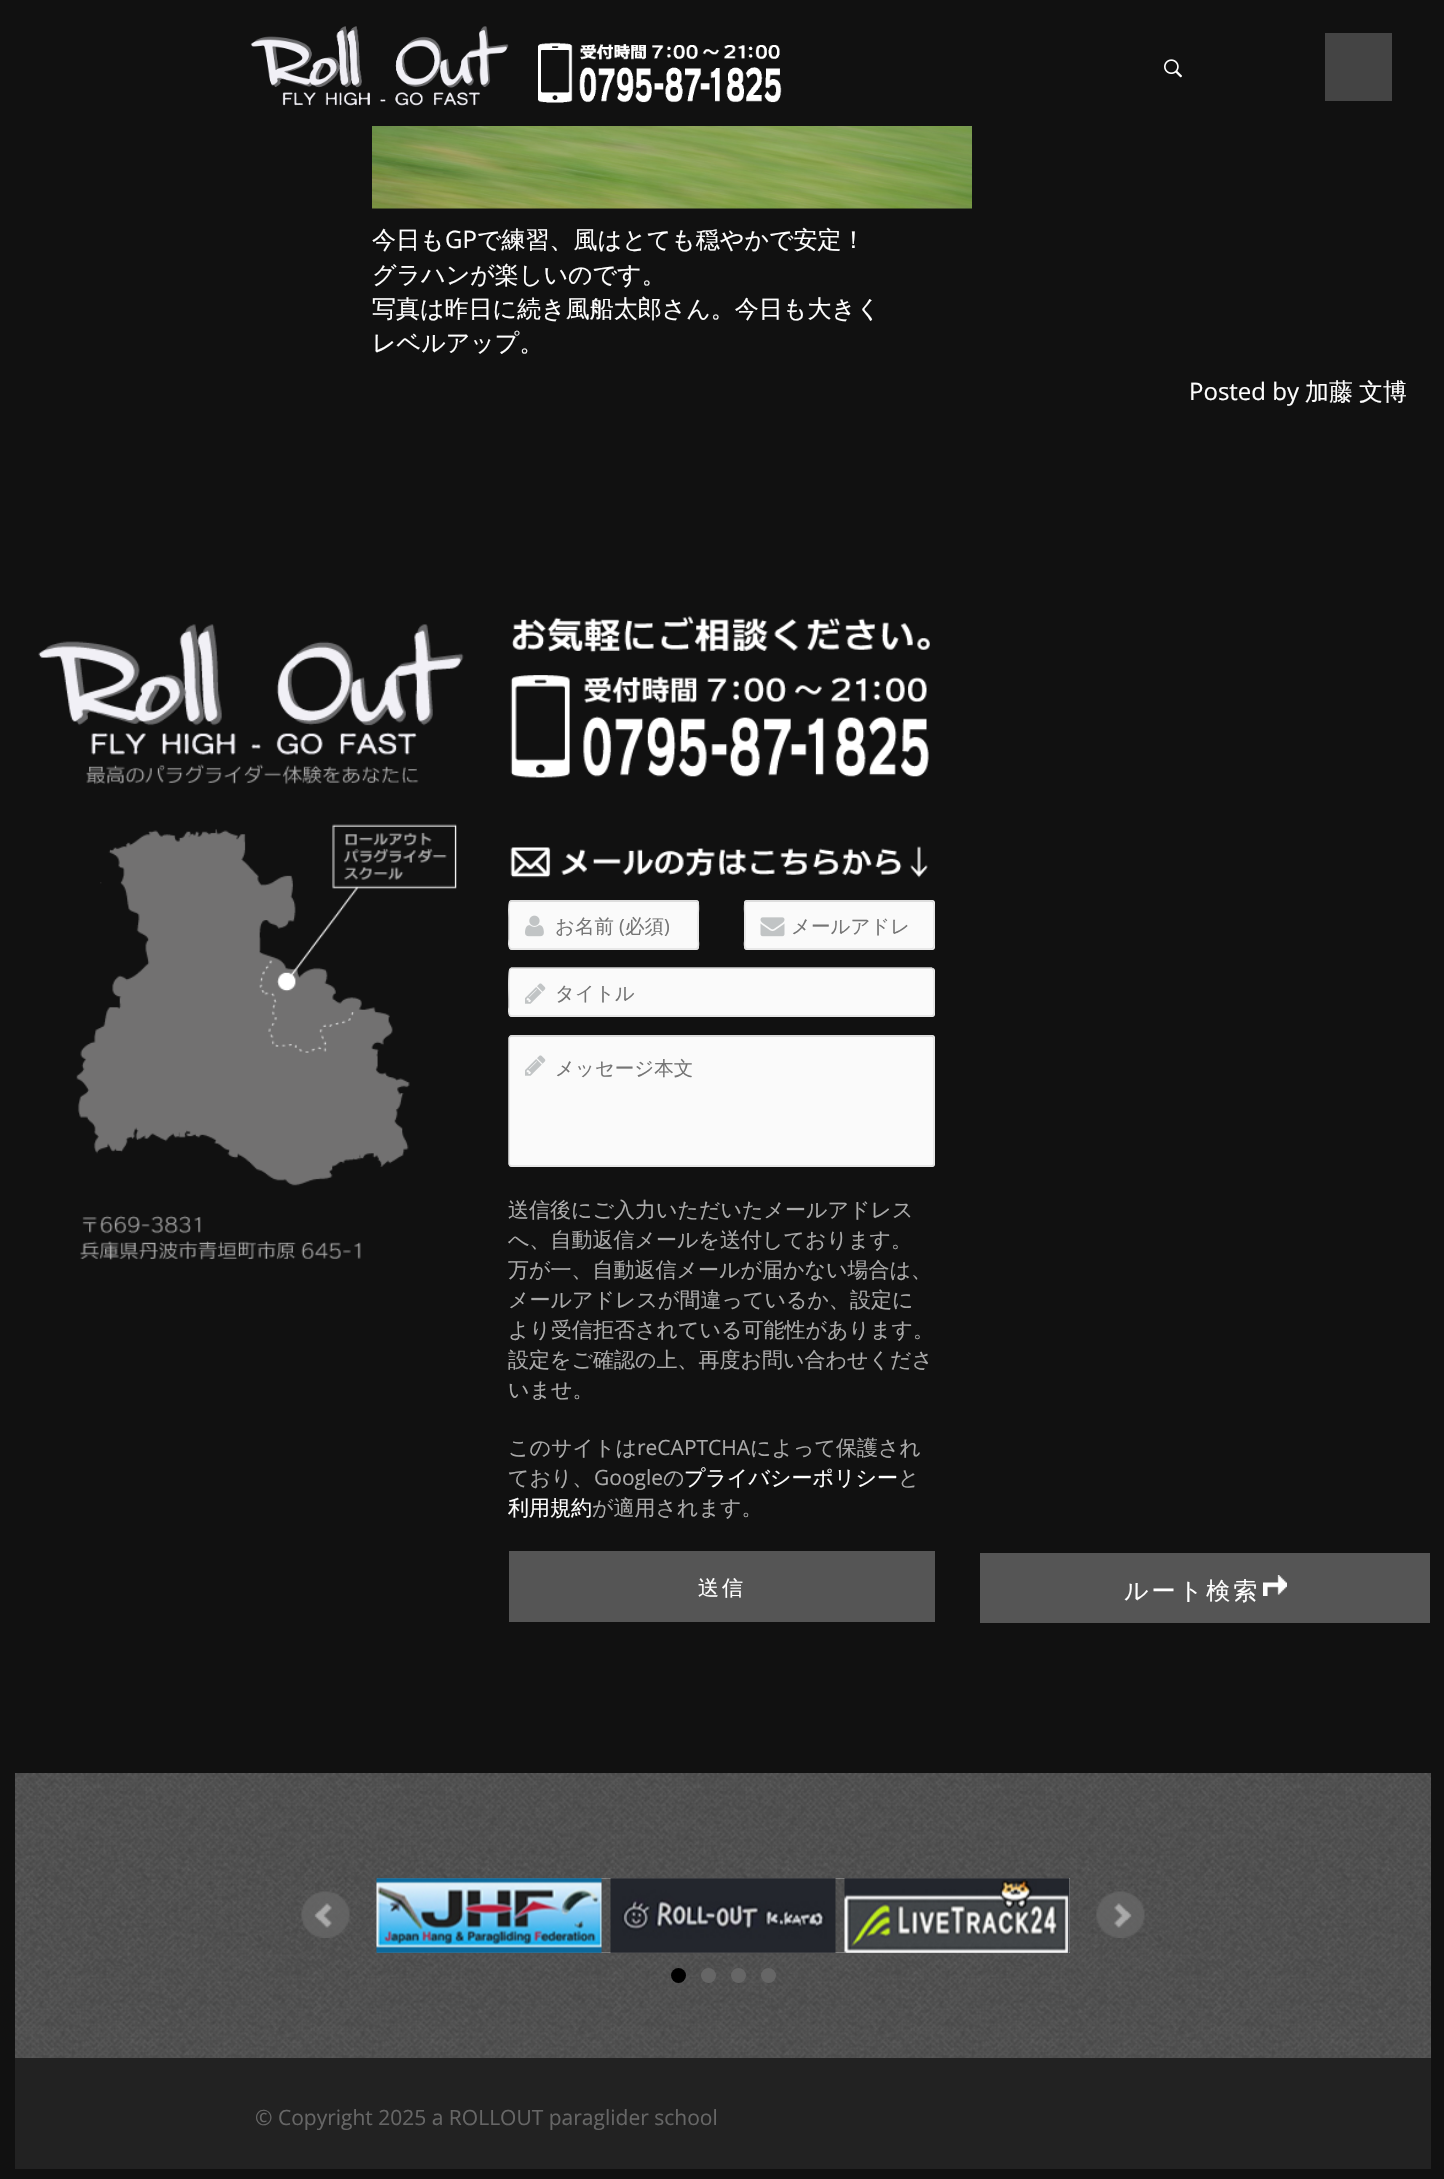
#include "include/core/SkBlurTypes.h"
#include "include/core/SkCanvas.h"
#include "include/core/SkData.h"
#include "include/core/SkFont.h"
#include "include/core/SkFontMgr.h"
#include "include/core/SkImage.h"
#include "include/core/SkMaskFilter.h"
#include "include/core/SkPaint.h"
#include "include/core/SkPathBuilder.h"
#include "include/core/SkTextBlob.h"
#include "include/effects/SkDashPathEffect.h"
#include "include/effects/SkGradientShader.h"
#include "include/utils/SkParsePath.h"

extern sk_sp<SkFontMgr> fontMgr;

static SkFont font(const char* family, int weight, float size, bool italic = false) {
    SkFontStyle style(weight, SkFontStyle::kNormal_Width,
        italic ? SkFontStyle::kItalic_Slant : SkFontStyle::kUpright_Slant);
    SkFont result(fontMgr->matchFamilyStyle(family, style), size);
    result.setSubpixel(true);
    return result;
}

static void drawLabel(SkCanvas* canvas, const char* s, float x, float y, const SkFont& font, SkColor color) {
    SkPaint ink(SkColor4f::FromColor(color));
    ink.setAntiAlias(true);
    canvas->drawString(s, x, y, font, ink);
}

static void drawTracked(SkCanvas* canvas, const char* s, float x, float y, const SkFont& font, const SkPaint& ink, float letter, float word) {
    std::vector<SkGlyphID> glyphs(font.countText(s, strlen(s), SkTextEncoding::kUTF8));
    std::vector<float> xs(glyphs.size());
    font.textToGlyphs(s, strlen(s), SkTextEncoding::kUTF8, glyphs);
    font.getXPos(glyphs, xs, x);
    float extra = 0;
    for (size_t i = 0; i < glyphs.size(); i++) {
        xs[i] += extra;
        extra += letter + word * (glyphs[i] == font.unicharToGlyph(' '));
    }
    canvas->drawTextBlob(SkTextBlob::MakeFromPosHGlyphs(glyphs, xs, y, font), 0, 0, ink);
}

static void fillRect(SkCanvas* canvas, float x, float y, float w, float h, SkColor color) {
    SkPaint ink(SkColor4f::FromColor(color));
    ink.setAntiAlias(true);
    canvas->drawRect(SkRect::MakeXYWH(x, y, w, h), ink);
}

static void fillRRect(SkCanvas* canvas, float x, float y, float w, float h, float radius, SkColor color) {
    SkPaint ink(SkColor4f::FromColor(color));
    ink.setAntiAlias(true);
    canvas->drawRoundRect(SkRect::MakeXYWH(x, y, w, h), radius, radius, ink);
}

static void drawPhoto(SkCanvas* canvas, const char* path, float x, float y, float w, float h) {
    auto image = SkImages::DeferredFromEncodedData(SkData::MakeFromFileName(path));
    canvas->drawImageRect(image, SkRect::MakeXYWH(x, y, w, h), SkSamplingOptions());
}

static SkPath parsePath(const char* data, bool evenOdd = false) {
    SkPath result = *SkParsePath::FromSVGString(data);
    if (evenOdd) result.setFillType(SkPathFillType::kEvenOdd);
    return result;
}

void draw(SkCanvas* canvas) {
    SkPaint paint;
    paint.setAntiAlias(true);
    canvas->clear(0xFF111111);
    drawPhoto(canvas, "assets/img1.png", 250, 26, 259, 80);
    drawPhoto(canvas, "assets/img2.png", 538, 42, 244, 61);
    drawPhoto(canvas, "assets/img3.png", 1164, 59, 18, 19);
    fillRect(canvas, 1325, 33, 67, 68, 0xFF444444);
    drawPhoto(canvas, "assets/img4.png", 372, 126, 600, 83);
    SkFont font1 = font("WenQuanYi Zen Hei", 500, 24);
    drawLabel(canvas, "今日も", 372, 248, font1, 0xFFFFFFFF);
    SkFont font2 = font("Open Sans", 400, 24);
    drawLabel(canvas, "GP", 445, 248, font2, 0xFFFFFFFF);
    drawLabel(canvas, "で練習、風はとても穏やかで安定！", 477, 248, font1, 0xFFFFFFFF);
    drawLabel(canvas, "グラハンが楽しいのです。", 372, 283, font1, 0xFFFFFFFF);
    drawLabel(canvas, "写真は昨日に続き風船太郎さん。今日も大きく", 372, 317, font1, 0xFFFFFFFF);
    drawLabel(canvas, "レベルアップ。", 372, 351, font1, 0xFFFFFFFF);
    drawLabel(canvas, "Posted by", 1189, 400, font2, 0xFFFFFFFF);
    drawLabel(canvas, "加藤", 1305, 400, font1, 0xFFFFFFFF);
    drawLabel(canvas, "文博", 1359, 400, font1, 0xFFFFFFFF);
    drawPhoto(canvas, "assets/img5.png", 38, 624, 426, 636);
    drawPhoto(canvas, "assets/img6.png", 510, 616, 420, 162);
    drawPhoto(canvas, "assets/img7.png", 510, 846, 418, 32);
    fillRRect(canvas, 509, 900, 190, 50, 3, 0xFFFAFAFA);
    paint.setStroke(true);
    paint.setStrokeWidth(1.5f);
    paint.setColor(0xFFD4D4D4);
    canvas->drawPath(parsePath("M510 901.5L511.5 901H696L697.5 901.5"), paint);
    paint.setColor(0xFFE2E2E2);
    canvas->drawPath(parsePath("M697.5 901.5C699.5 903 698 915 698 917.5V939C698 939.5 700 948.5 696 949H511.5C507.5 948.5 509 939.5 509 939V917.5C509 915 508 903 510 901.5"), paint);
    drawPhoto(canvas, "assets/img8.png", 525, 915, 19, 22);
    SkFont font3 = font("WenQuanYi Zen Hei", 500, 19.5f);
    drawLabel(canvas, "お名前", 555, 933, font3, 0xFF757575);
    SkFont font4 = font("Open Sans", 400, 19.5f);
    drawLabel(canvas, "(", 619, 933, font4, 0xFF757575);
    drawLabel(canvas, "必須", 625, 933, font3, 0xFF757575);
    drawLabel(canvas, ")", 664, 933, font4, 0xFF757575);
    fillRRect(canvas, 744, 900, 191, 50, 3, 0xFFFAFAFA);
    paint.setColor(0xFFD4D4D4);
    canvas->drawPath(parsePath("M745.5 901.5L747 901H931.5L933 901.5"), paint);
    paint.setColor(0xFFE2E2E2);
    canvas->drawPath(parsePath("M933 901.5C935 903 934 915 934 917.5V939C934 939.5 935.5 948.5 931.5 949H747C743 948.5 745 939.5 745 939V917.5C745 915 743.5 903 745.5 901.5"), paint);
    drawPhoto(canvas, "assets/img9.png", 760, 917, 25, 20);
    drawLabel(canvas, "メールアドレ", 791, 933, font3, 0xFF757575);
    fillRRect(canvas, 509, 968, 426, 49, 3, 0xFFFAFAFA);
    paint.setColor(0xFFD4D4D4);
    canvas->drawPath(parsePath("M510 969L511.5 968H931.5L933 969"), paint);
    paint.setColor(0xFFE2E2E2);
    canvas->drawPath(parsePath("M933 969C935 970.5 934 995.5 934 999.5V1007C934 1007 935.5 1016 931.5 1016H511.5C507.5 1016 509 1007 509 1007V999.5C509 995.5 508 970.5 510 969"), paint);
    drawPhoto(canvas, "assets/img10.png", 525, 983, 21, 21);
    drawLabel(canvas, "タイトル", 555, 1000, font3, 0xFF757575);
    fillRRect(canvas, 509, 1035, 426, 132, 3, 0xFFFAFAFA);
    paint.setColor(0xFFD4D4D4);
    canvas->drawPath(parsePath("M510 1036.5L511.5 1036H931.5L933 1036.5"), paint);
    paint.setColor(0xFFE2E2E2);
    canvas->drawPath(parsePath("M933 1036.5L934 1038V1164L933 1165.5L931.5 1166H511.5L510 1165.5L509 1164V1038L510 1036.5"), paint);
    drawPhoto(canvas, "assets/img10.png", 525, 1055, 21, 21);
    drawLabel(canvas, "メッセージ本文", 555, 1075, font3, 0xFF757575);
    SkFont font5 = font("WenQuanYi Zen Hei", 500, 21);
    drawLabel(canvas, "送信後にご入力いただいたメールアドレス", 508, 1217, font5, 0xFFAAAAAA);
    drawLabel(canvas, "へ、自動返信メールを送付しております。", 508, 1247, font5, 0xFFAAAAAA);
    drawLabel(canvas, "万が一、自動返信メールが届かない場合は、", 508, 1277, font5, 0xFFAAAAAA);
    drawLabel(canvas, "メールアドレスが間違っているか、設定に", 508, 1307, font5, 0xFFAAAAAA);
    drawLabel(canvas, "より受信拒否されている可能性があります。", 508, 1337, font5, 0xFFAAAAAA);
    drawLabel(canvas, "設定をご確認の上、再度お問い合わせくださ", 508, 1367, font5, 0xFFAAAAAA);
    drawLabel(canvas, "いませ。", 508, 1397, font5, 0xFFAAAAAA);
    drawLabel(canvas, "このサイトは", 508, 1455, font5, 0xFFAAAAAA);
    SkFont font6 = font("Open Sans", 400, 21);
    drawLabel(canvas, "reCAPTCHA", 637, 1455, font6, 0xFFAAAAAA);
    drawLabel(canvas, "によって保護され", 750, 1455, font5, 0xFFAAAAAA);
    drawLabel(canvas, "ており、", 508, 1485, font5, 0xFFAAAAAA);
    drawLabel(canvas, "Google", 594, 1485, font6, 0xFFAAAAAA);
    drawLabel(canvas, "の", 663, 1485, font5, 0xFFAAAAAA);
    drawLabel(canvas, "プライバシーポリシー", 684, 1485, font5, 0xFFFFFFFF);
    drawLabel(canvas, "と", 898, 1485, font5, 0xFFAAAAAA);
    drawLabel(canvas, "利用規約", 508, 1515, font5, 0xFFFFFFFF);
    drawLabel(canvas, "が適用されます。", 592, 1515, font5, 0xFFAAAAAA);
    fillRect(canvas, 509, 1551, 426, 71, 0xFF555555);
    paint.setStroke(false);
    paint.setColor(0xFFFFFFFF);
    drawTracked(canvas, "送信", 698, 1595, font5, paint, 3, 0);
    fillRect(canvas, 980, 1553, 450, 70, 0xFF555555);
    drawTracked(canvas, "ルート検索", 1124, 1599, font1, paint, 3, 0);
    drawPhoto(canvas, "assets/img11.png", 1263, 1575, 24, 21);
    drawPhoto(canvas, "assets/img12.png", 15, 1773, 1416, 285);
    fillRect(canvas, 377, 1878, 693, 75, 0xFFFFFFFF);
    drawPhoto(canvas, "assets/img13.png", 376, 1877, 694, 77);
    drawPhoto(canvas, "assets/img14.png", 376, 1878, 226, 75);
    drawPhoto(canvas, "assets/img15.png", 610, 1878, 226, 75);
    drawPhoto(canvas, "assets/img16.png", 844, 1878, 226, 75);
    drawPhoto(canvas, "assets/img17.png", 301, 1891, 49, 47);
    drawPhoto(canvas, "assets/img18.png", 1096, 1891, 49, 47);
    paint.setColor(0xFF000000);
    canvas->drawCircle(678.5f, 1975.5f, 7.5f, paint);
    paint.setColor(0xFF666666);
    canvas->drawCircle(708.5f, 1975.5f, 7.5f, paint);
    canvas->drawCircle(738.5f, 1975.5f, 7.5f, paint);
    canvas->drawCircle(768.5f, 1975.5f, 7.5f, paint);
    fillRect(canvas, 15, 2058, 1416, 111, 0xFF222222);
    drawLabel(canvas, "© Copyright 2025 a ROLLOUT paraglider school", 255, 2125, font6, 0xFF666666);
}
